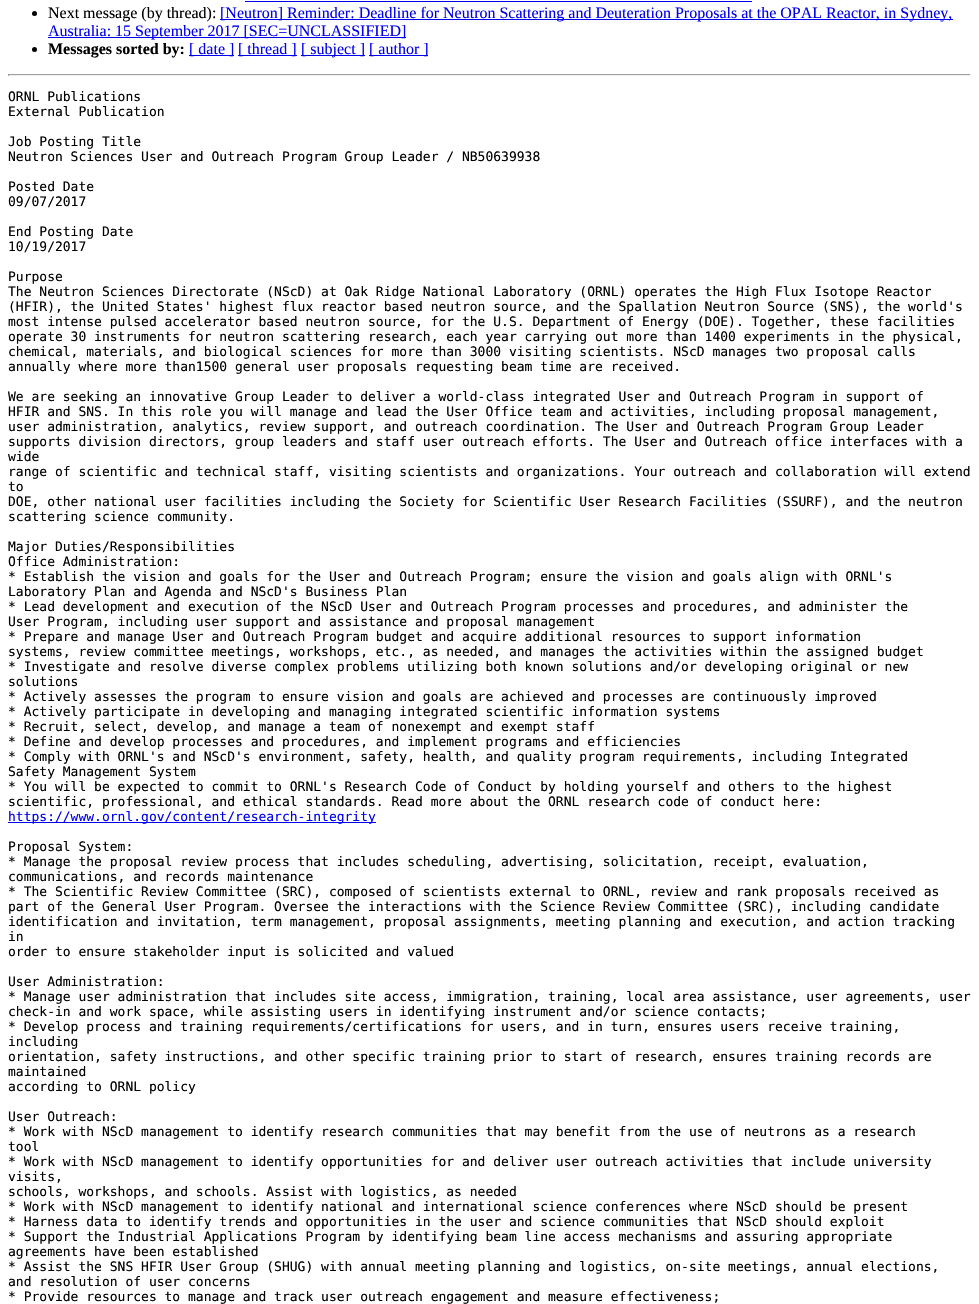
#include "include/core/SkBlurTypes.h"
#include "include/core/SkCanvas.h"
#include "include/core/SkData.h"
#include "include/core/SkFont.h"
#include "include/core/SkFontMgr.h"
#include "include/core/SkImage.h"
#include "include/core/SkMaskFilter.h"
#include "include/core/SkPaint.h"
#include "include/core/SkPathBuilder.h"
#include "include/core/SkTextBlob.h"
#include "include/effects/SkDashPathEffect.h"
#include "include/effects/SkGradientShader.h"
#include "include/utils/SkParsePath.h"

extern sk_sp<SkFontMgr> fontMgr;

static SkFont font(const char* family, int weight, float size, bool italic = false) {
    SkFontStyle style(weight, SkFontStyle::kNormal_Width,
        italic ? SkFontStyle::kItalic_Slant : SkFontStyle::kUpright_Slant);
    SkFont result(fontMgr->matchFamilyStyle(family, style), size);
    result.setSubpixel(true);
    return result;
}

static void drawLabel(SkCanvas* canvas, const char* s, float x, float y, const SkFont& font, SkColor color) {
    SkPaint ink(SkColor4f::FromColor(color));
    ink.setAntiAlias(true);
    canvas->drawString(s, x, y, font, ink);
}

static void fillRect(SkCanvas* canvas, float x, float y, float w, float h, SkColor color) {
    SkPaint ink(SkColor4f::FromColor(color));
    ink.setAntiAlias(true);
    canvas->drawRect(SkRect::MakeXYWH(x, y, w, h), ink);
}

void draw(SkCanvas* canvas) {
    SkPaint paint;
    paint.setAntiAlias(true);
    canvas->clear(0xFFFFFFFF);
    fillRect(canvas, 245, 1, 507, 1, 0xFF0000EE);
    paint.setColor(0xFF000000);
    canvas->drawCircle(34.5f, 13.5f, 2.5f, paint);
    SkFont font1 = font("Liberation Serif", 400, 16);
    drawLabel(canvas, "Next message (by thread):", 48, 18, font1, 0xFF000000);
    fillRect(canvas, 220, 19, 733, 1, 0xFF0000EE);
    drawLabel(canvas, "[Neutron] Reminder: Deadline for Neutron Scattering and Deuteration Proposals at the OPAL Reactor, in Sydney,", 220, 18, font1, 0xFF0000EE);
    fillRect(canvas, 48, 37, 358, 1, 0xFF0000EE);
    drawLabel(canvas, "Australia: 15 September 2017 [SEC=UNCLASSIFIED]", 48, 36, font1, 0xFF0000EE);
    canvas->drawCircle(34.5f, 49.5f, 2.5f, paint);
    SkFont font2 = font("Liberation Serif", 700, 16);
    drawLabel(canvas, "Messages sorted by:", 48, 54, font2, 0xFF000000);
    fillRect(canvas, 189, 55, 45, 1, 0xFF0000EE);
    drawLabel(canvas, "[ date ]", 189, 54, font1, 0xFF0000EE);
    fillRect(canvas, 238, 55, 59, 1, 0xFF0000EE);
    drawLabel(canvas, "[ thread ]", 238, 54, font1, 0xFF0000EE);
    fillRect(canvas, 301, 55, 64, 1, 0xFF0000EE);
    drawLabel(canvas, "[ subject ]", 301, 54, font1, 0xFF0000EE);
    fillRect(canvas, 369, 55, 59, 1, 0xFF0000EE);
    drawLabel(canvas, "[ author ]", 369, 54, font1, 0xFF0000EE);
    fillRect(canvas, 8, 74, 963, 1, 0xFF9F9F9F);
    fillRect(canvas, 970, 74, 1, 2, 0xFFEEEEEE);
    fillRect(canvas, 8, 75, 963, 1, 0xFFEEEEEE);
    fillRect(canvas, 8, 74, 1, 2, 0xFF9F9F9F);
    SkFont font3 = font("DejaVu Sans Mono", 400, 13);
    drawLabel(canvas, "ORNL Publications", 8, 101, font3, 0xFF000000);
    drawLabel(canvas, "External Publication", 8, 116, font3, 0xFF000000);
    drawLabel(canvas, "Job Posting Title", 8, 146, font3, 0xFF000000);
    drawLabel(canvas, "Neutron Sciences User and Outreach Program Group Leader / NB50639938", 8, 161, font3, 0xFF000000);
    drawLabel(canvas, "Posted Date", 8, 191, font3, 0xFF000000);
    drawLabel(canvas, "09/07/2017", 8, 206, font3, 0xFF000000);
    drawLabel(canvas, "End Posting Date", 8, 236, font3, 0xFF000000);
    drawLabel(canvas, "10/19/2017", 8, 251, font3, 0xFF000000);
    drawLabel(canvas, "Purpose", 8, 281, font3, 0xFF000000);
    drawLabel(canvas, "The Neutron Sciences Directorate (NScD) at Oak Ridge National Laboratory (ORNL) operates the High Flux Isotope Reactor", 8, 296, font3, 0xFF000000);
    drawLabel(canvas, "(HFIR), the United States' highest flux reactor based neutron source, and the Spallation Neutron Source (SNS), the world's", 8, 311, font3, 0xFF000000);
    drawLabel(canvas, "most intense pulsed accelerator based neutron source, for the U.S. Department of Energy (DOE). Together, these facilities", 8, 326, font3, 0xFF000000);
    drawLabel(canvas, "operate 30 instruments for neutron scattering research, each year carrying out more than 1400 experiments in the physical,", 8, 341, font3, 0xFF000000);
    drawLabel(canvas, "chemical, materials, and biological sciences for more than 3000 visiting scientists. NScD manages two proposal calls", 8, 356, font3, 0xFF000000);
    drawLabel(canvas, "annually where more than1500 general user proposals requesting beam time are received.", 8, 371, font3, 0xFF000000);
    drawLabel(canvas, "We are seeking an innovative Group Leader to deliver a world-class integrated User and Outreach Program in support of", 8, 401, font3, 0xFF000000);
    drawLabel(canvas, "HFIR and SNS. In this role you will manage and lead the User Office team and activities, including proposal management,", 8, 416, font3, 0xFF000000);
    drawLabel(canvas, "user administration, analytics, review support, and outreach coordination. The User and Outreach Program Group Leader", 8, 431, font3, 0xFF000000);
    drawLabel(canvas, "supports division directors, group leaders and staff user outreach efforts. The User and Outreach office interfaces with a", 8, 446, font3, 0xFF000000);
    drawLabel(canvas, "wide", 8, 461, font3, 0xFF000000);
    drawLabel(canvas, "range of scientific and technical staff, visiting scientists and organizations. Your outreach and collaboration will extend", 8, 476, font3, 0xFF000000);
    drawLabel(canvas, "to", 8, 491, font3, 0xFF000000);
    drawLabel(canvas, "DOE, other national user facilities including the Society for Scientific User Research Facilities (SSURF), and the neutron", 8, 506, font3, 0xFF000000);
    drawLabel(canvas, "scattering science community.", 8, 521, font3, 0xFF000000);
    drawLabel(canvas, "Major Duties/Responsibilities", 8, 551, font3, 0xFF000000);
    drawLabel(canvas, "Office Administration:", 8, 566, font3, 0xFF000000);
    drawLabel(canvas, "* Establish the vision and goals for the User and Outreach Program; ensure the vision and goals align with ORNL's", 8, 581, font3, 0xFF000000);
    drawLabel(canvas, "Laboratory Plan and Agenda and NScD's Business Plan", 8, 596, font3, 0xFF000000);
    drawLabel(canvas, "* Lead development and execution of the NScD User and Outreach Program processes and procedures, and administer the", 8, 611, font3, 0xFF000000);
    drawLabel(canvas, "User Program, including user support and assistance and proposal management", 8, 626, font3, 0xFF000000);
    drawLabel(canvas, "* Prepare and manage User and Outreach Program budget and acquire additional resources to support information", 8, 641, font3, 0xFF000000);
    drawLabel(canvas, "systems, review committee meetings, workshops, etc., as needed, and manages the activities within the assigned budget", 8, 656, font3, 0xFF000000);
    drawLabel(canvas, "* Investigate and resolve diverse complex problems utilizing both known solutions and/or developing original or new", 8, 671, font3, 0xFF000000);
    drawLabel(canvas, "solutions", 8, 686, font3, 0xFF000000);
    drawLabel(canvas, "* Actively assesses the program to ensure vision and goals are achieved and processes are continuously improved", 8, 701, font3, 0xFF000000);
    drawLabel(canvas, "* Actively participate in developing and managing integrated scientific information systems", 8, 716, font3, 0xFF000000);
    drawLabel(canvas, "* Recruit, select, develop, and manage a team of nonexempt and exempt staff", 8, 731, font3, 0xFF000000);
    drawLabel(canvas, "* Define and develop processes and procedures, and implement programs and efficiencies", 8, 746, font3, 0xFF000000);
    drawLabel(canvas, "* Comply with ORNL's and NScD's environment, safety, health, and quality program requirements, including Integrated", 8, 761, font3, 0xFF000000);
    drawLabel(canvas, "Safety Management System", 8, 776, font3, 0xFF000000);
    drawLabel(canvas, "* You will be expected to commit to ORNL's Research Code of Conduct by holding yourself and others to the highest", 8, 791, font3, 0xFF000000);
    drawLabel(canvas, "scientific, professional, and ethical standards. Read more about the ORNL research code of conduct here:", 8, 806, font3, 0xFF000000);
    fillRect(canvas, 8, 822, 368, 1, 0xFF0000EE);
    drawLabel(canvas, "https://www.ornl.gov/content/research-integrity", 8, 821, font3, 0xFF0000EE);
    drawLabel(canvas, "Proposal System:", 8, 851, font3, 0xFF000000);
    drawLabel(canvas, "* Manage the proposal review process that includes scheduling, advertising, solicitation, receipt, evaluation,", 8, 866, font3, 0xFF000000);
    drawLabel(canvas, "communications, and records maintenance", 8, 881, font3, 0xFF000000);
    drawLabel(canvas, "* The Scientific Review Committee (SRC), composed of scientists external to ORNL, review and rank proposals received as", 8, 896, font3, 0xFF000000);
    drawLabel(canvas, "part of the General User Program. Oversee the interactions with the Science Review Committee (SRC), including candidate", 8, 911, font3, 0xFF000000);
    drawLabel(canvas, "identification and invitation, term management, proposal assignments, meeting planning and execution, and action tracking", 8, 926, font3, 0xFF000000);
    drawLabel(canvas, "in", 8, 941, font3, 0xFF000000);
    drawLabel(canvas, "order to ensure stakeholder input is solicited and valued", 8, 956, font3, 0xFF000000);
    drawLabel(canvas, "User Administration:", 8, 986, font3, 0xFF000000);
    drawLabel(canvas, "* Manage user administration that includes site access, immigration, training, local area assistance, user agreements, user", 8, 1001, font3, 0xFF000000);
    drawLabel(canvas, "check-in and work space, while assisting users in identifying instrument and/or science contacts;", 8, 1016, font3, 0xFF000000);
    drawLabel(canvas, "* Develop process and training requirements/certifications for users, and in turn, ensures users receive training,", 8, 1031, font3, 0xFF000000);
    drawLabel(canvas, "including", 8, 1046, font3, 0xFF000000);
    drawLabel(canvas, "orientation, safety instructions, and other specific training prior to start of research, ensures training records are", 8, 1061, font3, 0xFF000000);
    drawLabel(canvas, "maintained", 8, 1076, font3, 0xFF000000);
    drawLabel(canvas, "according to ORNL policy", 8, 1091, font3, 0xFF000000);
    drawLabel(canvas, "User Outreach:", 8, 1121, font3, 0xFF000000);
    drawLabel(canvas, "* Work with NScD management to identify research communities that may benefit from the use of neutrons as a research", 8, 1136, font3, 0xFF000000);
    drawLabel(canvas, "tool", 8, 1151, font3, 0xFF000000);
    drawLabel(canvas, "* Work with NScD management to identify opportunities for and deliver user outreach activities that include university", 8, 1166, font3, 0xFF000000);
    drawLabel(canvas, "visits,", 8, 1181, font3, 0xFF000000);
    drawLabel(canvas, "schools, workshops, and schools. Assist with logistics, as needed", 8, 1196, font3, 0xFF000000);
    drawLabel(canvas, "* Work with NScD management to identify national and international science conferences where NScD should be present", 8, 1211, font3, 0xFF000000);
    drawLabel(canvas, "* Harness data to identify trends and opportunities in the user and science communities that NScD should exploit", 8, 1226, font3, 0xFF000000);
    drawLabel(canvas, "* Support the Industrial Applications Program by identifying beam line access mechanisms and assuring appropriate", 8, 1241, font3, 0xFF000000);
    drawLabel(canvas, "agreements have been established", 8, 1256, font3, 0xFF000000);
    drawLabel(canvas, "* Assist the SNS HFIR User Group (SHUG) with annual meeting planning and logistics, on-site meetings, annual elections,", 8, 1271, font3, 0xFF000000);
    drawLabel(canvas, "and resolution of user concerns", 8, 1286, font3, 0xFF000000);
    drawLabel(canvas, "* Provide resources to manage and track user outreach engagement and measure effectiveness;", 8, 1301, font3, 0xFF000000);
}
